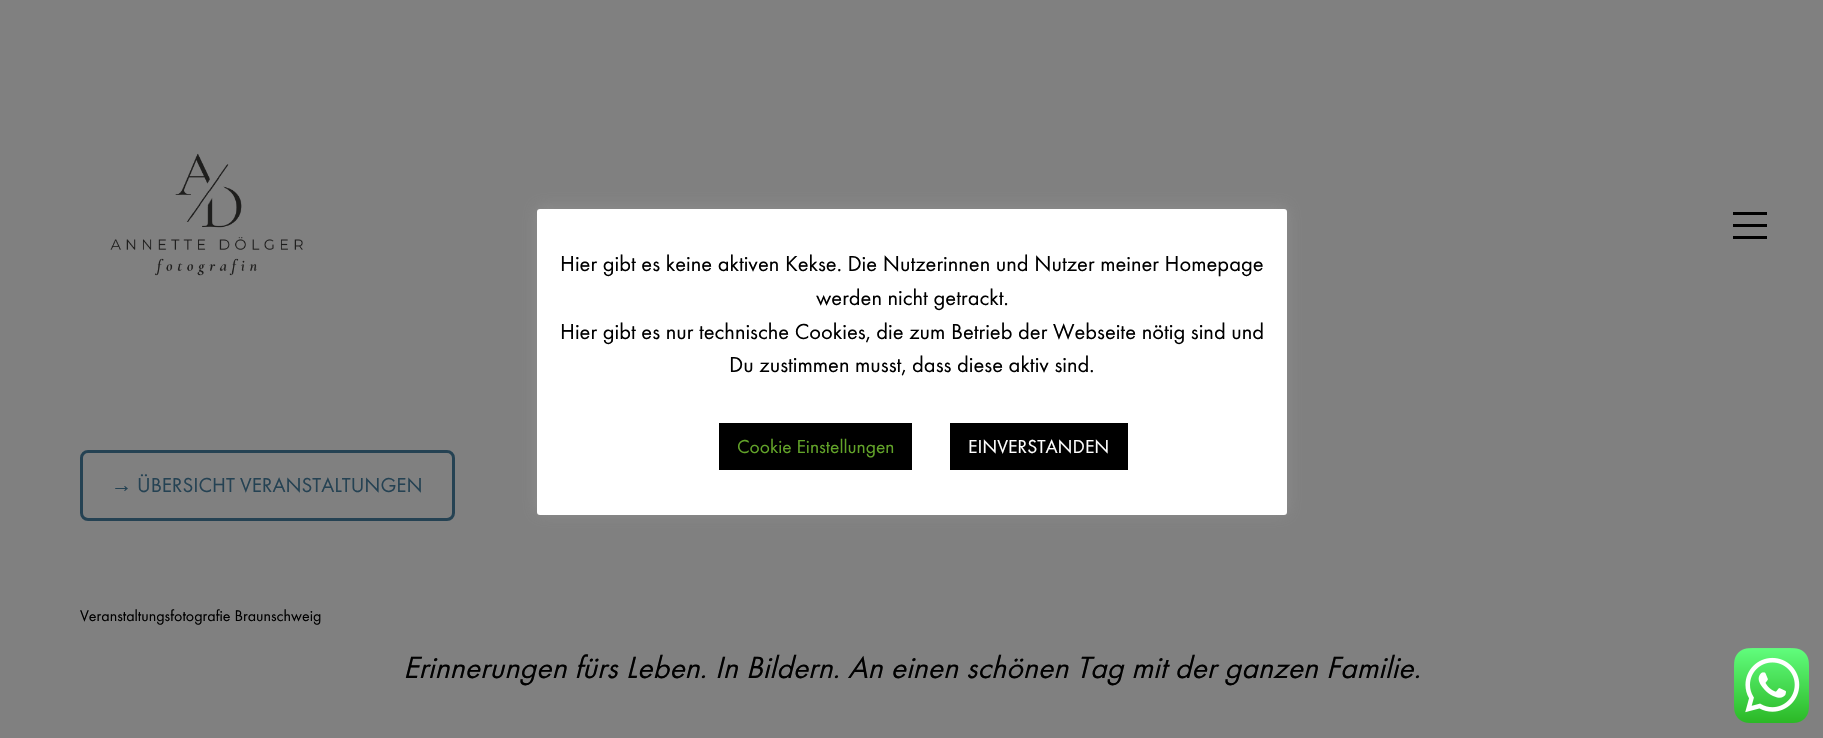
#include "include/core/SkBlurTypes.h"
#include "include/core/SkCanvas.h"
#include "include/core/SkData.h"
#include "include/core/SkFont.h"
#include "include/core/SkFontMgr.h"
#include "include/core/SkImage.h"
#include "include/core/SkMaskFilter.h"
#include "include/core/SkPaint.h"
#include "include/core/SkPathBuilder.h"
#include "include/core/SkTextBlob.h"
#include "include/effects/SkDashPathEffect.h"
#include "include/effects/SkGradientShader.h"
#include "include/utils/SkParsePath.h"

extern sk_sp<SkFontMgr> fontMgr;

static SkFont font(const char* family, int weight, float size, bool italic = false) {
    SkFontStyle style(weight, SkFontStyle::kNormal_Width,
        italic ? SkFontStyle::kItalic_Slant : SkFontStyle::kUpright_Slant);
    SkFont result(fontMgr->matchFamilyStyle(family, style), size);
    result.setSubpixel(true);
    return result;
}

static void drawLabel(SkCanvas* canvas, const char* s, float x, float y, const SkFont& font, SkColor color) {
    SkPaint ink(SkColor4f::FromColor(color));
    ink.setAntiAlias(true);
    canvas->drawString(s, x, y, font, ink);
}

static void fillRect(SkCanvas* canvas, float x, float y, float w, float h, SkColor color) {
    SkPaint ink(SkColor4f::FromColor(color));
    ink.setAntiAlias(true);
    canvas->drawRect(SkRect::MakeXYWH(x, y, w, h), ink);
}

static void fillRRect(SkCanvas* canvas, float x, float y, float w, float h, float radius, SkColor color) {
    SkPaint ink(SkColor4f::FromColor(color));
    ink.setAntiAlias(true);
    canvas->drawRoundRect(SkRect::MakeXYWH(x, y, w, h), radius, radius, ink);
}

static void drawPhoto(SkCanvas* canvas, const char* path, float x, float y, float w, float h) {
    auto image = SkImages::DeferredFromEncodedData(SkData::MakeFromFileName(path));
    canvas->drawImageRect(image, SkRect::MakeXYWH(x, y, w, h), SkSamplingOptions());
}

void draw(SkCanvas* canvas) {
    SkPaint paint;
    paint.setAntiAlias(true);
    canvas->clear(0xFF808080);
    paint.setColor(0x4DACABAB);
    paint.setMaskFilter(SkMaskFilter::MakeBlur(kNormal_SkBlurStyle, 7.5f));
    canvas->drawRoundRect(SkRect::MakeXYWH(537, 207, 750, 306), 3, 3, paint);
    paint.setMaskFilter(nullptr);
    fillRRect(canvas, 537, 209, 750, 306, 3, 0xFFFFFFFF);
    SkFont font1 = font("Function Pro", 400, 22.5f);
    drawLabel(canvas, "Hier gibt es keine aktiven Kekse. Die Nutzerinnen und Nutzer meiner Homepage", 560, 271, font1, 0xFF000000);
    drawLabel(canvas, "werden nicht getrackt.", 816, 305, font1, 0xFF000000);
    drawLabel(canvas, "Hier gibt es nur technische Cookies, die zum Betrieb der Webseite nötig sind und", 560, 339, font1, 0xFF000000);
    drawLabel(canvas, "Du zustimmen musst, dass diese aktiv sind.", 729, 372, font1, 0xFF000000);
    fillRect(canvas, 719, 423, 193, 47, 0xFF000000);
    SkFont font2 = font("Function Pro", 400, 19.5f);
    drawLabel(canvas, "Cookie Einstellungen", 737, 453, font2, 0xFF62A329);
    fillRect(canvas, 950, 423, 178, 47, 0xFF000000);
    drawLabel(canvas, "EINVERSTANDEN", 968, 453, font2, 0xFFFFFFFF);
    drawPhoto(canvas, "assets/img1.png", 110, 153, 193, 123);
    fillRect(canvas, 1733, 212, 34, 3, 0xFF000000);
    fillRect(canvas, 1733, 224, 34, 3, 0xFF000000);
    fillRect(canvas, 1733, 236, 34, 3, 0xFF000000);
    paint.setStroke(true);
    paint.setStrokeWidth(3);
    paint.setColor(0xFF254253);
    canvas->drawRoundRect(SkRect::MakeXYWH(81.5f, 451.5f, 372, 68), 6.5f, 6.5f, paint);
    SkFont font3 = font("Liberation Serif", 400, 21);
    drawLabel(canvas, "→", 111, 492, font3, 0xFF254253);
    SkFont font4 = font("Function Pro", 400, 21);
    drawLabel(canvas, "ÜBERSICHT VERANSTALTUNGEN", 137, 492, font4, 0xFF254253);
    SkFont font5 = font("Function Pro", 400, 16);
    drawLabel(canvas, "Veranstaltungsfotografie Braunschweig", 80, 621, font5, 0xFF000000);
    SkFont font6 = font("Function Pro", 400, 32, true);
    drawLabel(canvas, "Erinnerungen fürs Leben. In Bildern. An einen schönen Tag mit der ganzen Familie.", 403, 678, font6, 0xFF000000);
    drawPhoto(canvas, "assets/img2.png", 1734, 648, 75, 75);
}
